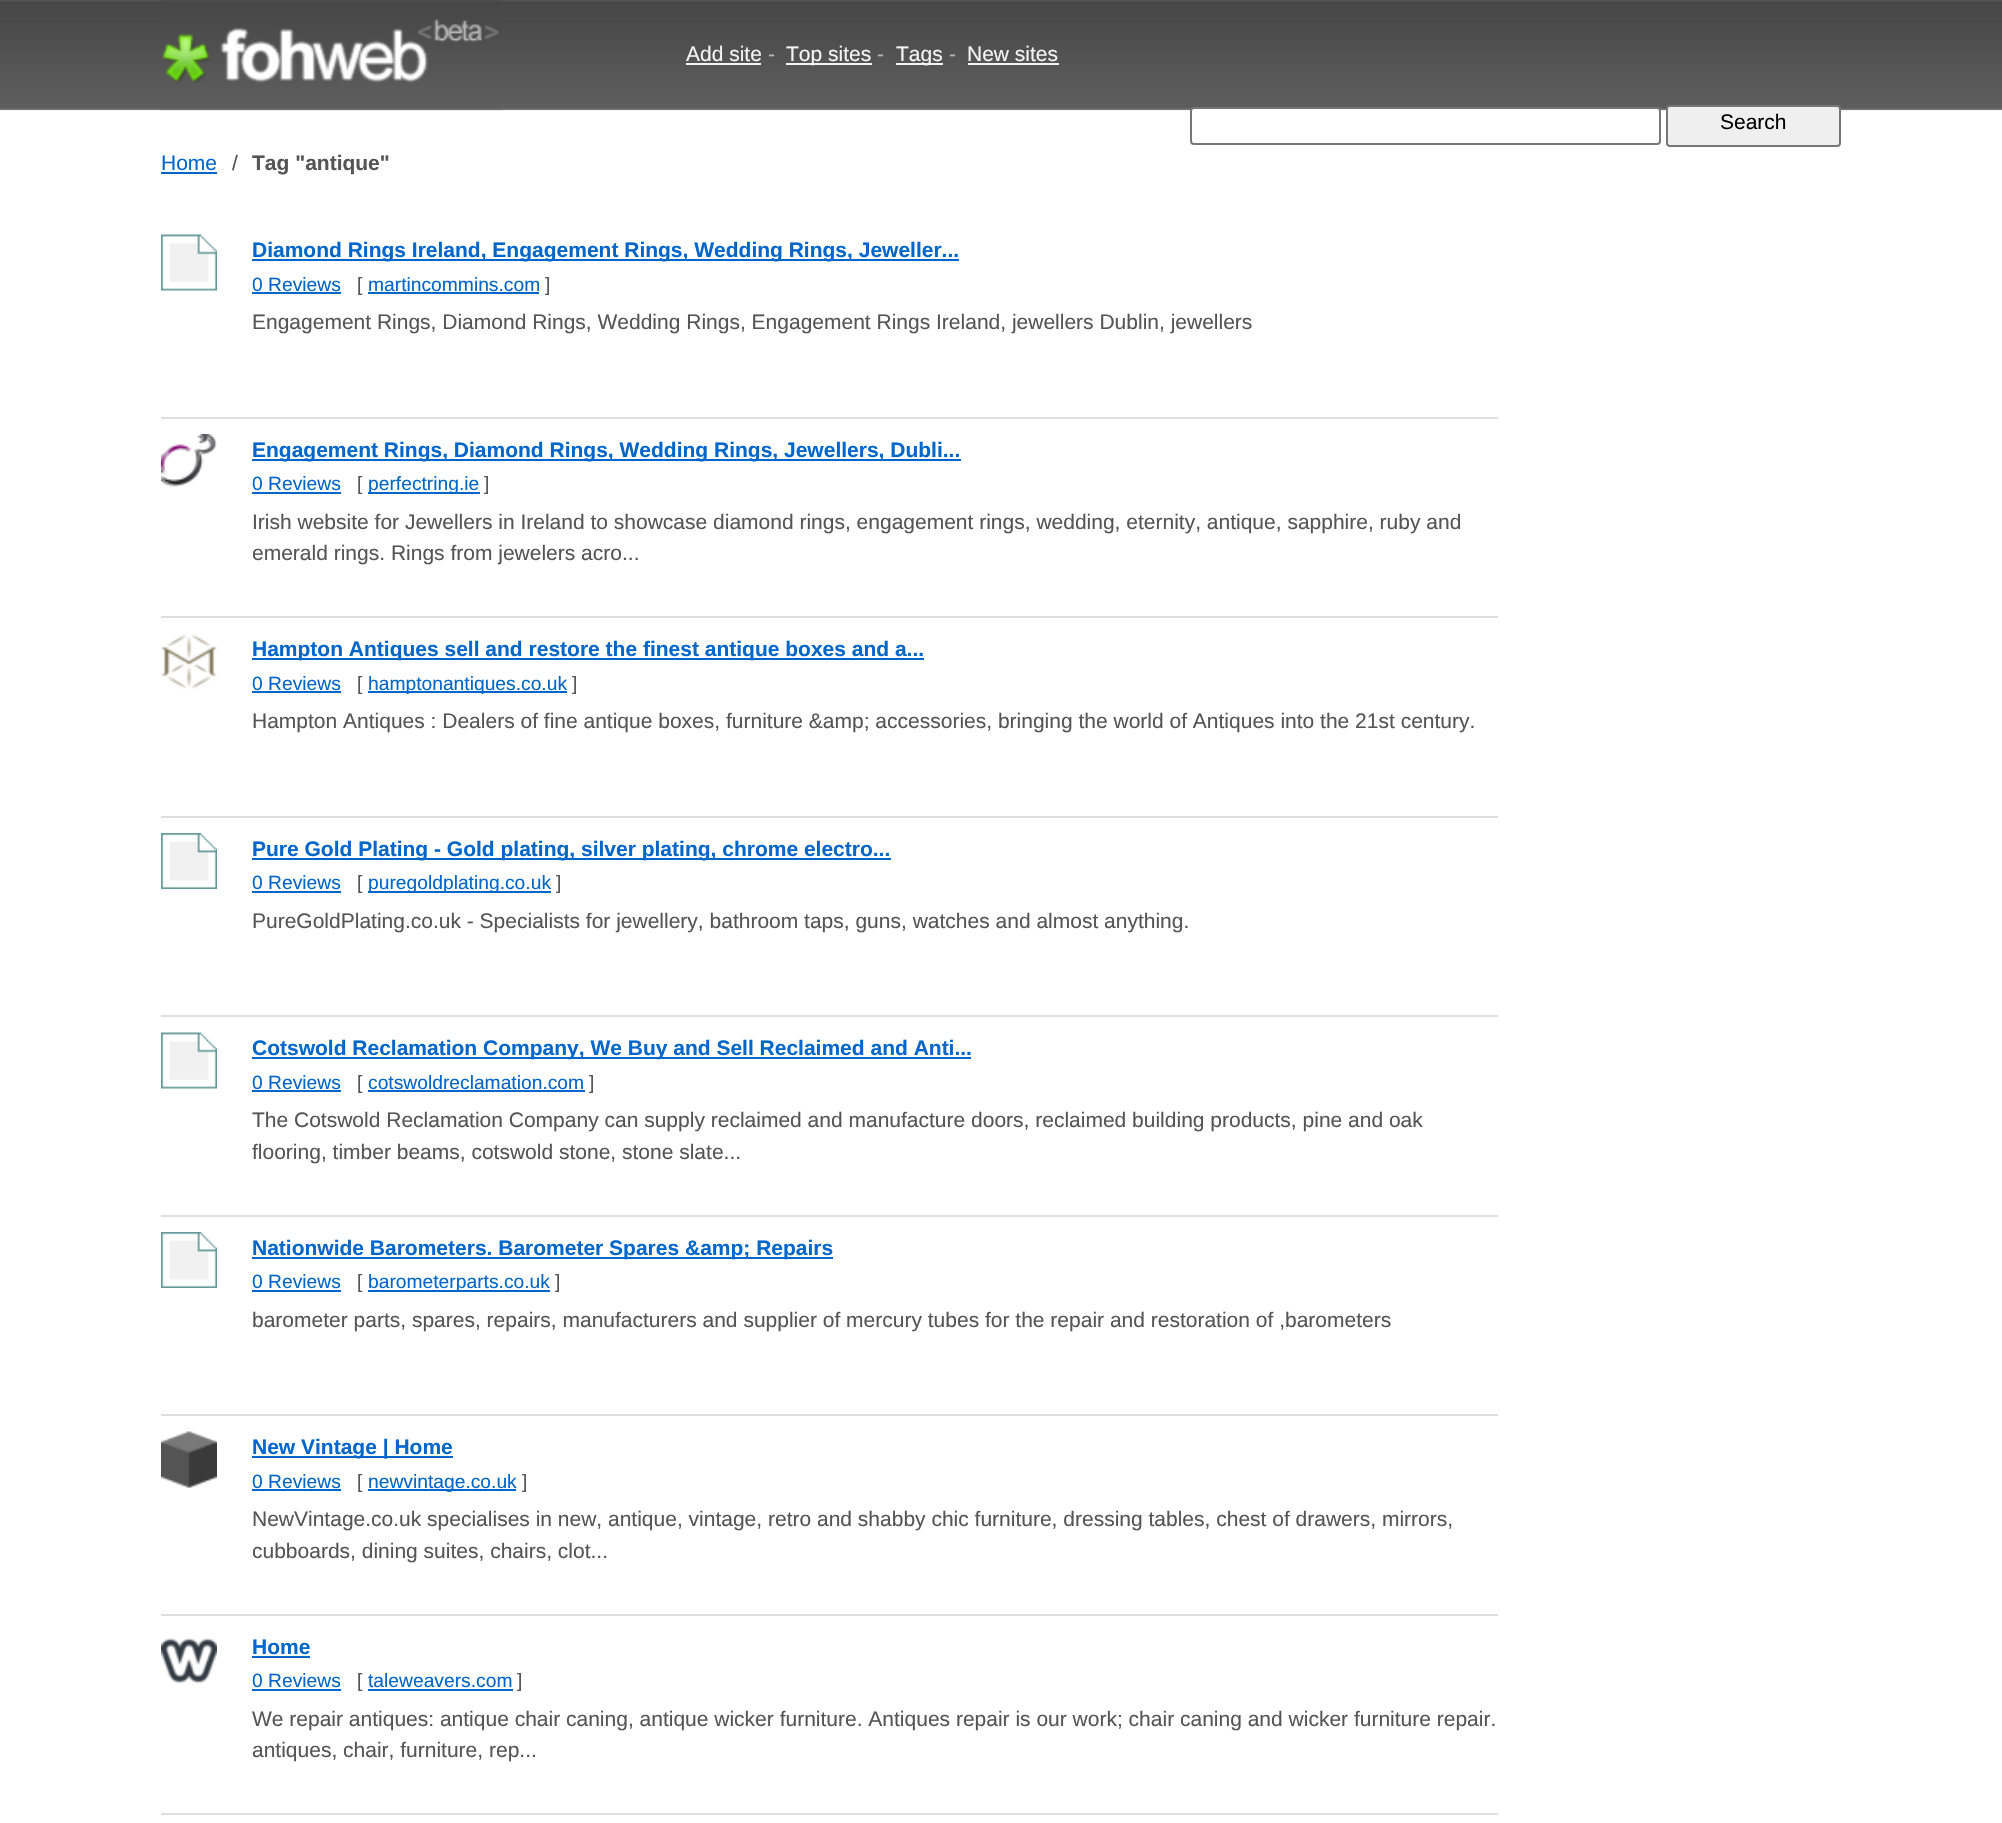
#include "include/core/SkBlurTypes.h"
#include "include/core/SkCanvas.h"
#include "include/core/SkData.h"
#include "include/core/SkFont.h"
#include "include/core/SkFontMgr.h"
#include "include/core/SkImage.h"
#include "include/core/SkMaskFilter.h"
#include "include/core/SkPaint.h"
#include "include/core/SkPathBuilder.h"
#include "include/core/SkTextBlob.h"
#include "include/effects/SkDashPathEffect.h"
#include "include/effects/SkGradientShader.h"
#include "include/utils/SkParsePath.h"

extern sk_sp<SkFontMgr> fontMgr;

static SkFont font(const char* family, int weight, float size, bool italic = false) {
    SkFontStyle style(weight, SkFontStyle::kNormal_Width,
        italic ? SkFontStyle::kItalic_Slant : SkFontStyle::kUpright_Slant);
    SkFont result(fontMgr->matchFamilyStyle(family, style), size);
    result.setSubpixel(true);
    return result;
}

static void drawLabel(SkCanvas* canvas, const char* s, float x, float y, const SkFont& font, SkColor color) {
    SkPaint ink(SkColor4f::FromColor(color));
    ink.setAntiAlias(true);
    canvas->drawString(s, x, y, font, ink);
}

static void fillRect(SkCanvas* canvas, float x, float y, float w, float h, SkColor color) {
    SkPaint ink(SkColor4f::FromColor(color));
    ink.setAntiAlias(true);
    canvas->drawRect(SkRect::MakeXYWH(x, y, w, h), ink);
}

static void drawPhoto(SkCanvas* canvas, const char* path, float x, float y, float w, float h) {
    auto image = SkImages::DeferredFromEncodedData(SkData::MakeFromFileName(path));
    canvas->drawImageRect(image, SkRect::MakeXYWH(x, y, w, h), SkSamplingOptions());
}

void draw(SkCanvas* canvas) {
    SkPaint paint;
    paint.setAntiAlias(true);
    canvas->clear(0xFFFFFFFF);
    drawPhoto(canvas, "assets/img1.png", 0, 0, 2002, 111);
    drawPhoto(canvas, "assets/img2.png", 161, 0, 341, 111);
    SkFont font1 = font("Liberation Sans", 400, 21);
    drawLabel(canvas, "Add site", 686, 61, font1, 0xFFF3F3F3);
    fillRect(canvas, 686, 63, 75, 2, 0xFFF3F3F3);
    drawLabel(canvas, "-", 768, 61, font1, 0xFFB6B6B6);
    fillRect(canvas, 786, 63, 86, 2, 0xFFF3F3F3);
    drawLabel(canvas, "Top sites", 786, 61, font1, 0xFFF3F3F3);
    drawLabel(canvas, "-", 877, 61, font1, 0xFFB6B6B6);
    fillRect(canvas, 896, 63, 47, 2, 0xFFF3F3F3);
    drawLabel(canvas, "Tags", 896, 61, font1, 0xFFF3F3F3);
    drawLabel(canvas, "-", 949, 61, font1, 0xFFB6B6B6);
    drawLabel(canvas, "New sites", 967, 61, font1, 0xFFF3F3F3);
    fillRect(canvas, 968, 63, 91, 2, 0xFFF3F3F3);
    paint.setColor(0xFFFFFFFF);
    canvas->drawRoundRect(SkRect::MakeXYWH(1191, 108, 469, 36), 3, 3, paint);
    paint.setStroke(true);
    paint.setStrokeWidth(2);
    paint.setColor(0xFF767676);
    canvas->drawRoundRect(SkRect::MakeXYWH(1191, 108, 469, 36), 3, 3, paint);
    paint.setStroke(false);
    paint.setColor(0xFFEFEFEF);
    canvas->drawRoundRect(SkRect::MakeXYWH(1667, 106, 173, 40), 3, 3, paint);
    paint.setStroke(true);
    paint.setColor(0xFF767676);
    canvas->drawRoundRect(SkRect::MakeXYWH(1667, 106, 173, 40), 3, 3, paint);
    drawLabel(canvas, "Search", 1720, 129, font1, 0xFF000000);
    drawLabel(canvas, "Home", 161, 170, font1, 0xFF0066CC);
    fillRect(canvas, 161, 172, 56, 2, 0xFF0066CC);
    drawLabel(canvas, "/", 232, 170, font1, 0xFF555555);
    SkFont font2 = font("Liberation Sans", 700, 21);
    drawLabel(canvas, "Tag \"antique\"", 252, 170, font2, 0xFF555555);
    fillRect(canvas, 161, 417, 1337, 2, 0xFFDEDEDE);
    drawPhoto(canvas, "assets/img3.png", 161, 234, 56, 57);
    fillRect(canvas, 252, 259, 707, 2, 0xFF0066CC);
    drawLabel(canvas, "Diamond Rings Ireland, Engagement Rings, Wedding Rings, Jeweller...", 252, 257, font2, 0xFF0066CC);
    SkFont font3 = font("Liberation Sans", 400, 19.25f);
    drawLabel(canvas, "0 Reviews", 252, 291, font3, 0xFF0066CC);
    fillRect(canvas, 252, 292, 89, 2, 0xFF0066CC);
    drawLabel(canvas, "[", 357, 291, font3, 0xFF555555);
    drawLabel(canvas, "martincommins.com", 368, 291, font3, 0xFF0066CC);
    fillRect(canvas, 368, 292, 171, 2, 0xFF0066CC);
    drawLabel(canvas, "]", 545, 291, font3, 0xFF555555);
    drawLabel(canvas, "Engagement Rings, Diamond Rings, Wedding Rings, Engagement Rings Ireland, jewellers Dublin, jewellers", 252, 329, font1, 0xFF555555);
    fillRect(canvas, 161, 616, 1337, 2, 0xFFDEDEDE);
    drawPhoto(canvas, "assets/img4.png", 161, 434, 56, 53);
    fillRect(canvas, 252, 459, 709, 2, 0xFF0066CC);
    drawLabel(canvas, "Engagement Rings, Diamond Rings, Wedding Rings, Jewellers, Dubli...", 252, 457, font2, 0xFF0066CC);
    drawLabel(canvas, "0 Reviews", 252, 490, font3, 0xFF0066CC);
    fillRect(canvas, 252, 492, 89, 2, 0xFF0066CC);
    drawLabel(canvas, "[", 357, 490, font3, 0xFF555555);
    fillRect(canvas, 368, 492, 112, 2, 0xFF0066CC);
    drawLabel(canvas, "perfectring.ie", 368, 490, font3, 0xFF0066CC);
    drawLabel(canvas, "]", 484, 490, font3, 0xFF555555);
    drawLabel(canvas, "Irish website for Jewellers in Ireland to showcase diamond rings, engagement rings, wedding, eternity, antique, sapphire, ruby and", 252, 529, font1, 0xFF555555);
    drawLabel(canvas, "emerald rings. Rings from jewelers acro...", 252, 560, font1, 0xFF555555);
    fillRect(canvas, 161, 816, 1337, 2, 0xFFDEDEDE);
    drawPhoto(canvas, "assets/img5.png", 161, 634, 56, 55);
    fillRect(canvas, 252, 658, 672, 2, 0xFF0066CC);
    drawLabel(canvas, "Hampton Antiques sell and restore the finest antique boxes and a...", 252, 656, font2, 0xFF0066CC);
    drawLabel(canvas, "0 Reviews", 252, 690, font3, 0xFF0066CC);
    fillRect(canvas, 252, 691, 89, 2, 0xFF0066CC);
    drawLabel(canvas, "[", 357, 690, font3, 0xFF555555);
    fillRect(canvas, 368, 691, 199, 2, 0xFF0066CC);
    drawLabel(canvas, "hamptonantiques.co.uk", 368, 690, font3, 0xFF0066CC);
    drawLabel(canvas, "]", 572, 690, font3, 0xFF555555);
    drawLabel(canvas, "Hampton Antiques : Dealers of fine antique boxes, furniture &amp; accessories, bringing the world of Antiques into the 21st century.", 252, 728, font1, 0xFF555555);
    fillRect(canvas, 161, 1015, 1337, 2, 0xFFDEDEDE);
    drawPhoto(canvas, "assets/img6.png", 161, 833, 56, 56);
    fillRect(canvas, 252, 858, 639, 2, 0xFF0066CC);
    drawLabel(canvas, "Pure Gold Plating - Gold plating, silver plating, chrome electro...", 252, 856, font2, 0xFF0066CC);
    drawLabel(canvas, "0 Reviews", 252, 889, font3, 0xFF0066CC);
    fillRect(canvas, 252, 891, 89, 2, 0xFF0066CC);
    drawLabel(canvas, "[", 357, 889, font3, 0xFF555555);
    fillRect(canvas, 368, 891, 183, 2, 0xFF0066CC);
    drawLabel(canvas, "puregoldplating.co.uk", 368, 889, font3, 0xFF0066CC);
    drawLabel(canvas, "]", 556, 889, font3, 0xFF555555);
    drawLabel(canvas, "PureGoldPlating.co.uk - Specialists for jewellery, bathroom taps, guns, watches and almost anything.", 252, 928, font1, 0xFF555555);
    fillRect(canvas, 161, 1215, 1337, 2, 0xFFDEDEDE);
    drawPhoto(canvas, "assets/img3.png", 161, 1032, 56, 57);
    fillRect(canvas, 252, 1057, 719, 2, 0xFF0066CC);
    drawLabel(canvas, "Cotswold Reclamation Company, We Buy and Sell Reclaimed and Anti...", 252, 1055, font2, 0xFF0066CC);
    drawLabel(canvas, "0 Reviews", 252, 1089, font3, 0xFF0066CC);
    fillRect(canvas, 252, 1090, 89, 2, 0xFF0066CC);
    drawLabel(canvas, "[", 357, 1089, font3, 0xFF555555);
    drawLabel(canvas, "cotswoldreclamation.com", 368, 1089, font3, 0xFF0066CC);
    fillRect(canvas, 368, 1090, 217, 2, 0xFF0066CC);
    drawLabel(canvas, "]", 589, 1089, font3, 0xFF555555);
    drawLabel(canvas, "The Cotswold Reclamation Company can supply reclaimed and manufacture doors, reclaimed building products, pine and oak", 252, 1127, font1, 0xFF555555);
    drawLabel(canvas, "flooring, timber beams, cotswold stone, stone slate...", 252, 1159, font1, 0xFF555555);
    fillRect(canvas, 161, 1414, 1337, 2, 0xFFDEDEDE);
    drawPhoto(canvas, "assets/img6.png", 161, 1232, 56, 56);
    fillRect(canvas, 252, 1257, 581, 2, 0xFF0066CC);
    drawLabel(canvas, "Nationwide Barometers. Barometer Spares &amp; Repairs", 252, 1255, font2, 0xFF0066CC);
    drawLabel(canvas, "0 Reviews", 252, 1288, font3, 0xFF0066CC);
    fillRect(canvas, 252, 1290, 89, 2, 0xFF0066CC);
    drawLabel(canvas, "[", 357, 1288, font3, 0xFF555555);
    fillRect(canvas, 368, 1290, 182, 2, 0xFF0066CC);
    drawLabel(canvas, "barometerparts.co.uk", 368, 1288, font3, 0xFF0066CC);
    drawLabel(canvas, "]", 555, 1288, font3, 0xFF555555);
    drawLabel(canvas, "barometer parts, spares, repairs, manufacturers and supplier of mercury tubes for the repair and restoration of ,barometers", 252, 1327, font1, 0xFF555555);
    fillRect(canvas, 161, 1614, 1337, 2, 0xFFDEDEDE);
    drawPhoto(canvas, "assets/img7.png", 161, 1431, 56, 57);
    fillRect(canvas, 252, 1456, 201, 2, 0xFF0066CC);
    drawLabel(canvas, "New Vintage | Home", 252, 1454, font2, 0xFF0066CC);
    drawLabel(canvas, "0 Reviews", 252, 1488, font3, 0xFF0066CC);
    fillRect(canvas, 252, 1489, 89, 2, 0xFF0066CC);
    drawLabel(canvas, "[", 357, 1488, font3, 0xFF555555);
    fillRect(canvas, 368, 1489, 148, 2, 0xFF0066CC);
    drawLabel(canvas, "newvintage.co.uk", 368, 1488, font3, 0xFF0066CC);
    drawLabel(canvas, "]", 522, 1488, font3, 0xFF555555);
    drawLabel(canvas, "NewVintage.co.uk specialises in new, antique, vintage, retro and shabby chic furniture, dressing tables, chest of drawers, mirrors,", 252, 1526, font1, 0xFF555555);
    drawLabel(canvas, "cubboards, dining suites, chairs, clot...", 252, 1558, font1, 0xFF555555);
    fillRect(canvas, 161, 1813, 1337, 2, 0xFFDEDEDE);
    drawPhoto(canvas, "assets/img8.png", 161, 1638, 56, 46);
    drawLabel(canvas, "Home", 252, 1654, font2, 0xFF0066CC);
    fillRect(canvas, 252, 1656, 58, 2, 0xFF0066CC);
    drawLabel(canvas, "0 Reviews", 252, 1687, font3, 0xFF0066CC);
    fillRect(canvas, 252, 1689, 89, 2, 0xFF0066CC);
    drawLabel(canvas, "[", 357, 1687, font3, 0xFF555555);
    drawLabel(canvas, "taleweavers.com", 368, 1687, font3, 0xFF0066CC);
    fillRect(canvas, 368, 1689, 145, 2, 0xFF0066CC);
    drawLabel(canvas, "]", 517, 1687, font3, 0xFF555555);
    drawLabel(canvas, "We repair antiques: antique chair caning, antique wicker furniture. Antiques repair is our work; chair caning and wicker furniture repair.", 252, 1726, font1, 0xFF555555);
    drawLabel(canvas, "antiques, chair, furniture, rep...", 252, 1757, font1, 0xFF555555);
}
